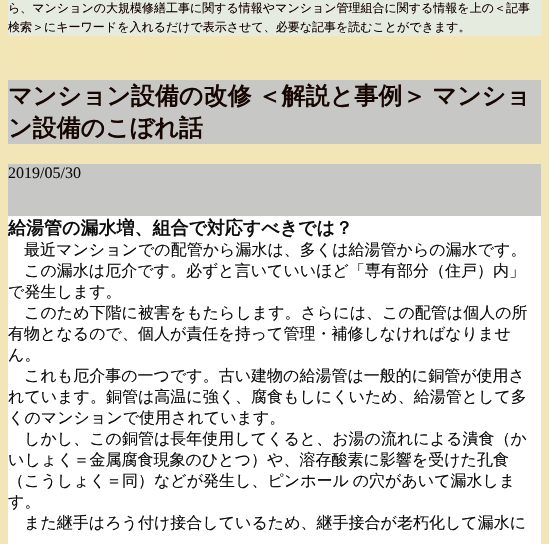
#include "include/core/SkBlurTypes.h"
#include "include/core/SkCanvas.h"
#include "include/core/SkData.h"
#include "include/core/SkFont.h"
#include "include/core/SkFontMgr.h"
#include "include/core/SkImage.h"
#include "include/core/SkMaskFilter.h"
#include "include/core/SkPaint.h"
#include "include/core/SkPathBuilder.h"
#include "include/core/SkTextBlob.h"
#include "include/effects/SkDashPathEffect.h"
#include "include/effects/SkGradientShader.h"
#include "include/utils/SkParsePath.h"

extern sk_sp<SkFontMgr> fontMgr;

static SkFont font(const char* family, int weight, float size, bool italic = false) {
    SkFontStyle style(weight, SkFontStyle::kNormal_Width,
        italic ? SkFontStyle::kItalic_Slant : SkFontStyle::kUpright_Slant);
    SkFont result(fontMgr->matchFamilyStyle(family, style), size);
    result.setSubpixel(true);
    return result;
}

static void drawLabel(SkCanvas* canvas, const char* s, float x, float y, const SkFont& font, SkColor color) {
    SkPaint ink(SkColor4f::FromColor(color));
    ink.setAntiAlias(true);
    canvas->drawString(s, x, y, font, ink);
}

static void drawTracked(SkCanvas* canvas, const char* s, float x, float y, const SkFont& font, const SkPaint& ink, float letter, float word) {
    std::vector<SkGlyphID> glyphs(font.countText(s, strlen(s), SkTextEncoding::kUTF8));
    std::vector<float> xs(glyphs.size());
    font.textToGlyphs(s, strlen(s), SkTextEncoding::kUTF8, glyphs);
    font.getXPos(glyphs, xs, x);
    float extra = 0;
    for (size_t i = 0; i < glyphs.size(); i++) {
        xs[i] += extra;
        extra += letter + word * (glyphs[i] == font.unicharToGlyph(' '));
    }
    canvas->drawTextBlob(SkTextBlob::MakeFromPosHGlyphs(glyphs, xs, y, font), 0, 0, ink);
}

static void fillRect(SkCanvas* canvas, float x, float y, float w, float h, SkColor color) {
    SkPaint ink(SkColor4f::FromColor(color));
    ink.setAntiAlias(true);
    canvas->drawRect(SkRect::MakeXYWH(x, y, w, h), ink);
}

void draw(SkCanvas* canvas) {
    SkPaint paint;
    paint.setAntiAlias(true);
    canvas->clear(0xFFF2E5B6);
    fillRect(canvas, 8, 0, 533, 36, 0xFFE6EBE0);
    SkFont font1 = font("WenQuanYi Zen Hei", 500, 12);
    drawLabel(canvas, "ら、マンションの大規模修繕工事に関する情報やマンション管理組合に関する情報を上の＜記事", 8, 12, font1, 0xFF120101);
    drawLabel(canvas, "検索＞にキーワードを入れるだけで表示させて、必要な記事を読むことができます。", 8, 31, font1, 0xFF120101);
    fillRect(canvas, 8, 80, 533, 64, 0xFFC7C7C6);
    SkFont font2 = font("WenQuanYi Zen Hei", 700, 24);
    paint.setColor(0xFF170701);
    drawTracked(canvas, "マンション設備の改修 ＜解説と事例＞ マンショ", 8, 104, font2, paint, 0, -1);
    drawLabel(canvas, "ン設備のこぼれ話", 8, 136, font2, 0xFF170701);
    fillRect(canvas, 8, 164, 533, 52, 0xFFC7C7C6);
    SkFont font3 = font("Liberation Serif", 400, 16);
    drawLabel(canvas, "2019/05/30", 8, 178, font3, 0xFF0F0E0E);
    fillRect(canvas, 8, 216, 533, 328, 0xFFFFFFFF);
    SkFont font4 = font("WenQuanYi Zen Hei", 700, 18);
    drawLabel(canvas, "給湯管の漏水増、組合で対応すべきでは？", 8, 234, font4, 0xFF0F0E0E);
    SkFont font5 = font("WenQuanYi Zen Hei", 500, 16);
    drawLabel(canvas, "最近マンションでの配管から漏水は、多くは給湯管からの漏水です。", 24, 255, font5, 0xFF0F0E0E);
    drawLabel(canvas, "この漏水は厄介です。必ずと言いていいほど「専有部分（住戸）内」", 24, 276, font5, 0xFF0F0E0E);
    drawLabel(canvas, "で発生します。", 8, 297, font5, 0xFF0F0E0E);
    drawLabel(canvas, "このため下階に被害をもたらします。さらには、この配管は個人の所", 24, 318, font5, 0xFF0F0E0E);
    drawLabel(canvas, "有物となるので、個人が責任を持って管理・補修しなければなりませ", 8, 339, font5, 0xFF0F0E0E);
    drawLabel(canvas, "ん。", 8, 360, font5, 0xFF0F0E0E);
    drawLabel(canvas, "これも厄介事の一つです。古い建物の給湯管は一般的に銅管が使用さ", 24, 381, font5, 0xFF0F0E0E);
    drawLabel(canvas, "れています。銅管は高温に強く、腐食もしにくいため、給湯管として多", 8, 402, font5, 0xFF0F0E0E);
    drawLabel(canvas, "くのマンションで使用されています。", 8, 423, font5, 0xFF0F0E0E);
    drawLabel(canvas, "しかし、この銅管は長年使用してくると、お湯の流れによる潰食（か", 24, 444, font5, 0xFF0F0E0E);
    drawLabel(canvas, "いしょく＝金属腐食現象のひとつ）や、溶存酸素に影響を受けた孔食", 8, 465, font5, 0xFF0F0E0E);
    paint.setColor(0xFF0F0E0E);
    drawTracked(canvas, "（こうしょく＝同）などが発生し、ピンホール の穴があいて漏水しま", 8, 486, font5, paint, 0, -1);
    drawLabel(canvas, "す。", 8, 507, font5, 0xFF0F0E0E);
    drawLabel(canvas, "また継手はろう付け接合しているため、継手接合が老朽化して漏水に", 24, 528, font5, 0xFF0F0E0E);
}
